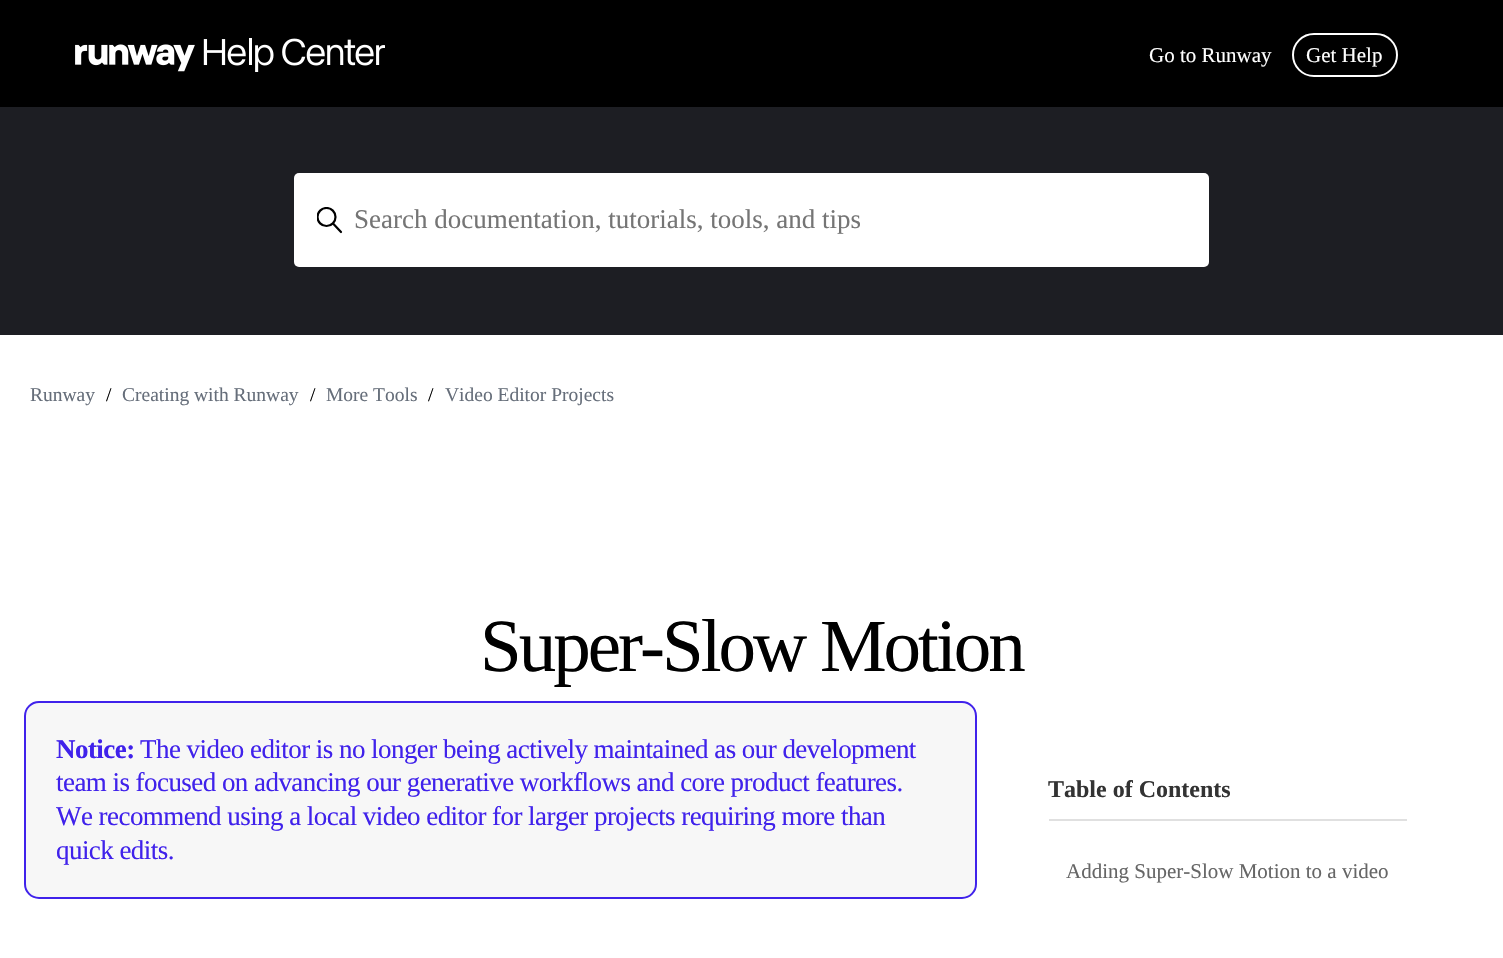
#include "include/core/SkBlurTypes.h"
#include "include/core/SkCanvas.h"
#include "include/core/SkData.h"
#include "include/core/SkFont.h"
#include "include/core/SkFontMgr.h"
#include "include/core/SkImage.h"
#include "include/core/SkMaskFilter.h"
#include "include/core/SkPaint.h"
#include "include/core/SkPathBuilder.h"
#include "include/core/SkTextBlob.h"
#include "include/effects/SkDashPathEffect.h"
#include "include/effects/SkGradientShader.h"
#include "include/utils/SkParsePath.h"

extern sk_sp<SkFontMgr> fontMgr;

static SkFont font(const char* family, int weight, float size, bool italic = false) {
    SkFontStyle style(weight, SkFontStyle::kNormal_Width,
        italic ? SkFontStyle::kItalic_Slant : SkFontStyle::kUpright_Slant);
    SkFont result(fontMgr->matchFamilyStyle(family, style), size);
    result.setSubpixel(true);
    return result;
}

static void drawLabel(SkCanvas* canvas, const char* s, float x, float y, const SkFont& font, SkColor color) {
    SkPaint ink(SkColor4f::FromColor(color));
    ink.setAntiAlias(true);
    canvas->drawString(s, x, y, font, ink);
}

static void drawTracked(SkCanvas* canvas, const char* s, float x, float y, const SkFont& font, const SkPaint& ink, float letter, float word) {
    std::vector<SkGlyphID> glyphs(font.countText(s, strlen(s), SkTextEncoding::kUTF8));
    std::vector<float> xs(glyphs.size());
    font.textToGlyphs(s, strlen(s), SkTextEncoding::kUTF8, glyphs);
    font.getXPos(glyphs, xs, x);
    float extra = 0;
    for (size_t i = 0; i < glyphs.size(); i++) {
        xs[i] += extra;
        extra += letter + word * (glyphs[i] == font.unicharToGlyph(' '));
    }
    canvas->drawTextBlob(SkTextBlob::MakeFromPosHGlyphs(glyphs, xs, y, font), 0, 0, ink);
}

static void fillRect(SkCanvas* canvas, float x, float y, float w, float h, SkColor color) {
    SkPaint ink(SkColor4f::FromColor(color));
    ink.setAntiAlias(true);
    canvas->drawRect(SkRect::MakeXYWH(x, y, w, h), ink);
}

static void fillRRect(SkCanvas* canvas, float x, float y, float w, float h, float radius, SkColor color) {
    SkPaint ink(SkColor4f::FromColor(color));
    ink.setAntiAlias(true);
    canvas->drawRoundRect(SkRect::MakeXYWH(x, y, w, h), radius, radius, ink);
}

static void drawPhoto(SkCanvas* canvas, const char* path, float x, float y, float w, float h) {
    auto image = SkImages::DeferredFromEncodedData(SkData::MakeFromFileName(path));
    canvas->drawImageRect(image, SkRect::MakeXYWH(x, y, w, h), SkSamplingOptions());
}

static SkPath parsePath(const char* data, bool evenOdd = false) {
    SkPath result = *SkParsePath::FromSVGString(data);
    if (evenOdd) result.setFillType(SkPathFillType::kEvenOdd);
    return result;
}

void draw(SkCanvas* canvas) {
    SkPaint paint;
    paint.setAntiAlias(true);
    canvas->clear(0xFFFFFFFF);
    fillRect(canvas, 0, 0, 1503, 107, 0xFF000000);
    drawPhoto(canvas, "assets/img1.png", 75, 38, 310, 34);
    SkFont font1 = font("Liberation Serif", 400, 21);
    drawLabel(canvas, "Go to Runway", 1149, 62, font1, 0xFFFFFFFF);
    paint.setStroke(true);
    paint.setStrokeWidth(2);
    paint.setColor(0xFFFFFFFF);
    canvas->drawRoundRect(SkRect::MakeXYWH(1293, 34, 104, 42), 21, 21, paint);
    drawLabel(canvas, "Get Help", 1306, 62, font1, 0xFFFFFFFF);
    fillRect(canvas, 0, 107, 1503, 228, 0xFF1D1E23);
    fillRRect(canvas, 294, 173, 915, 94, 5, 0xFFFFFFFF);
    canvas->save();
    canvas->clipRect(SkRect::MakeXYWH(317, 207, 27, 27));
    paint.setStrokeWidth(2.2f);
    paint.setColor(0xFF000000);
    canvas->drawCircle(326.5f, 217, 9, paint);
    canvas->restore();
    paint.setStrokeCap(SkPaint::kRound_Cap);
    canvas->drawPath(parsePath("M341 232L333.5 224"), paint);
    SkFont font2 = font("Liberation Serif", 400, 27);
    drawLabel(canvas, "Search documentation, tutorials, tools, and tips", 354, 228, font2, 0xFF757575);
    SkFont font3 = font("Liberation Serif", 400, 19.5f);
    drawLabel(canvas, "Runway", 30, 401, font3, 0xFF666E7A);
    drawLabel(canvas, "/", 106, 401, font3, 0xFF000000);
    drawLabel(canvas, "Creating with Runway", 122, 401, font3, 0xFF666E7A);
    drawLabel(canvas, "/", 310, 401, font3, 0xFF000000);
    drawLabel(canvas, "More Tools", 326, 401, font3, 0xFF666E7A);
    drawLabel(canvas, "/", 428, 401, font3, 0xFF000000);
    drawLabel(canvas, "Video Editor Projects", 445, 401, font3, 0xFF666E7A);
    SkFont font4 = font("Liberation Serif", 400, 75);
    paint.setStroke(false);
    drawTracked(canvas, "Super-Slow Motion", 480, 671, font4, paint, -3, 0);
    paint.setColor(0xFFF7F7F7);
    canvas->drawRoundRect(SkRect::MakeXYWH(25, 702, 951, 196), 14, 14, paint);
    paint.setStroke(true);
    paint.setStrokeWidth(2);
    paint.setStrokeCap(SkPaint::kButt_Cap);
    paint.setColor(0xFF4022EB);
    canvas->drawRoundRect(SkRect::MakeXYWH(25, 702, 951, 196), 14, 14, paint);
    SkFont font5 = font("Liberation Serif", 700, 27);
    paint.setStroke(false);
    drawTracked(canvas, "Notice:", 56, 758, font5, paint, -0.55f, 0);
    drawTracked(canvas, "The video editor is no longer being actively maintained as our development", 140, 758, font2, paint, -0.55f, 0);
    drawTracked(canvas, "team is focused on advancing our generative workflows and core product features.", 56, 791, font2, paint, -0.55f, 0);
    drawTracked(canvas, "We recommend using a local video editor for larger projects requiring more than", 56, 825, font2, paint, -0.55f, 0);
    drawTracked(canvas, "quick edits.", 56, 859, font2, paint, -0.55f, 0);
    fillRect(canvas, 1049, 819, 358, 2, 0xFFE0E0E0);
    SkFont font6 = font("Liberation Serif", 700, 24);
    drawLabel(canvas, "Table of Contents", 1048, 797, font6, 0xFF333333);
    drawLabel(canvas, "Adding Super-Slow Motion to a video", 1066, 878, font1, 0xFF666666);
}
